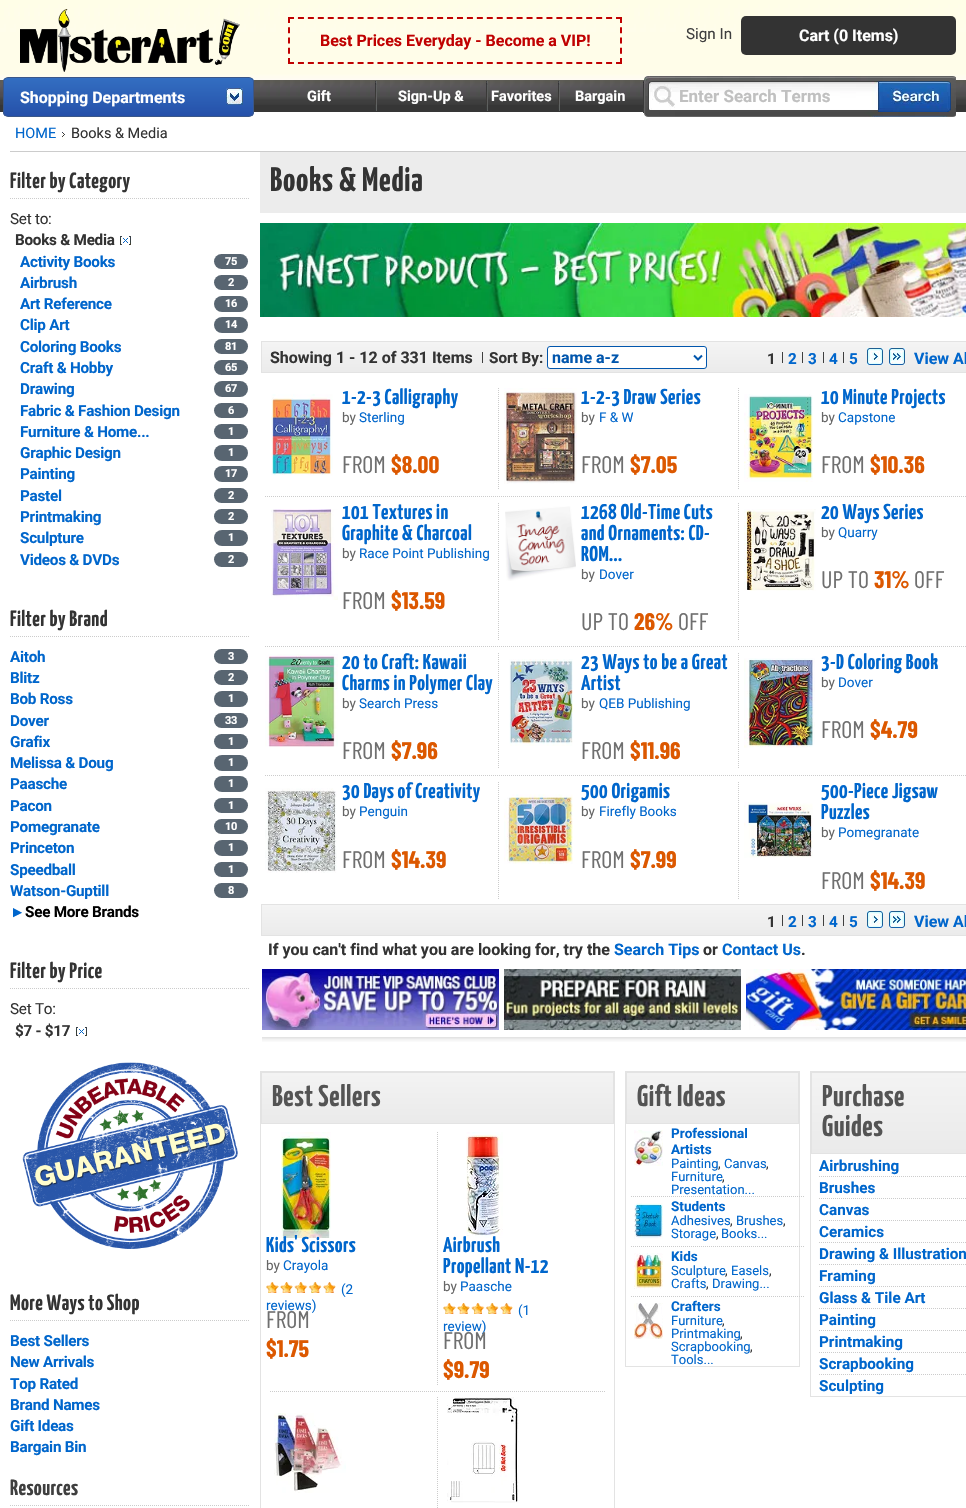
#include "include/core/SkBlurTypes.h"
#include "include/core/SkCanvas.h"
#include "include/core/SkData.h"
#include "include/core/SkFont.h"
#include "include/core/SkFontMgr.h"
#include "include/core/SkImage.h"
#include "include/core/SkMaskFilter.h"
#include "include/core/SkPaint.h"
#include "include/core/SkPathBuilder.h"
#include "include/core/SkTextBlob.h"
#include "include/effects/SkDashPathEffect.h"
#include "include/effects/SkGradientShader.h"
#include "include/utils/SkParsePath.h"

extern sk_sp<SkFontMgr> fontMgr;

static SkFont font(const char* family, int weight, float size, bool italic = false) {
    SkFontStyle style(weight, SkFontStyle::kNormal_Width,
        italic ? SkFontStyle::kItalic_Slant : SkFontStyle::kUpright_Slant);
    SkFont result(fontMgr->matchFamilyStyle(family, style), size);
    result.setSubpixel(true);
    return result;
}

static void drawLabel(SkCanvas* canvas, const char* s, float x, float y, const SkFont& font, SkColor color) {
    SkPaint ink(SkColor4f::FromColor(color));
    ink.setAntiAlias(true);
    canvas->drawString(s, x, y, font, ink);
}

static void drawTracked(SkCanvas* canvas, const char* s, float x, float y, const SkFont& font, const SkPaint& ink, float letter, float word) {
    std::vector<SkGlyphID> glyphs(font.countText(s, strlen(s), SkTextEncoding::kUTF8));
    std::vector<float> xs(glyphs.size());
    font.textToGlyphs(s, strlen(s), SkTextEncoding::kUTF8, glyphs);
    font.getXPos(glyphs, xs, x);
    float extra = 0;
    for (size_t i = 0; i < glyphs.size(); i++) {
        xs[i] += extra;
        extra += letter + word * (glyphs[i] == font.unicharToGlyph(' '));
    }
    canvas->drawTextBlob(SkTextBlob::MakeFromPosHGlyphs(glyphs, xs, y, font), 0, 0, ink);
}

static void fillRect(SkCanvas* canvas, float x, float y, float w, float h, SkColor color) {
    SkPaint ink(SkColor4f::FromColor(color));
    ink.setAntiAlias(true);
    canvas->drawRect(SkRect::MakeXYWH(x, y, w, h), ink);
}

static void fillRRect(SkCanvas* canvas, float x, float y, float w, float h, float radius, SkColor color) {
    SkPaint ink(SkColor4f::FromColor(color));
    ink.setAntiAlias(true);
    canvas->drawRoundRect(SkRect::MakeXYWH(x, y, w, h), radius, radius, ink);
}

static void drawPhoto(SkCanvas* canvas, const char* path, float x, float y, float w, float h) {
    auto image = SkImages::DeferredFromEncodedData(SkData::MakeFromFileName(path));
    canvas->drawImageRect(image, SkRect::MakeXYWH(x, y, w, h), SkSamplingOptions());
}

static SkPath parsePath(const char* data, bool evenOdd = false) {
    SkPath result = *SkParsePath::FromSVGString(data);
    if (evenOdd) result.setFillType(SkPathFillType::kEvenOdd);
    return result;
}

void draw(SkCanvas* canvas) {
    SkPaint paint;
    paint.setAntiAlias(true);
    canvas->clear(0xFFFFFFFF);
    fillRect(canvas, 0, 105, 966, 7, 0xFF363636);
    drawPhoto(canvas, "assets/img1.png", 0, 0, 966, 105);
    drawPhoto(canvas, "assets/img2.png", 20, 9, 220, 63);
    paint.setStroke(true);
    paint.setStrokeWidth(2);
    paint.setColor(0xFFC00101);
    paint.setPathEffect(SkDashPathEffect::Make({{6, 3.94f}}, 0));
    canvas->drawPath(parsePath("M288 18H622"), paint);
    paint.setPathEffect(nullptr);
    paint.setPathEffect(SkDashPathEffect::Make({{6, 4.25f}}, 0));
    canvas->drawPath(parsePath("M621 17V64"), paint);
    paint.setPathEffect(nullptr);
    paint.setPathEffect(SkDashPathEffect::Make({{6, 3.94f}}, 0));
    canvas->drawPath(parsePath("M288 63H622"), paint);
    paint.setPathEffect(nullptr);
    paint.setPathEffect(SkDashPathEffect::Make({{6, 4.25f}}, 0));
    canvas->drawPath(parsePath("M289 17V64"), paint);
    paint.setPathEffect(nullptr);
    SkFont font1 = font("Roboto", 700, 16);
    drawLabel(canvas, "Best Prices Everyday - Become a VIP!", 320, 46, font1, 0xFFC00101);
    SkFont font2 = font("Roboto", 400, 15.25f);
    drawLabel(canvas, "Sign In", 686, 39, font2, 0xFF3F3F3F);
    fillRRect(canvas, 741, 16, 215, 39, 5, 0xFF333333);
    drawLabel(canvas, "Cart (0 Items)", 799, 41, font1, 0xFFFFFFFF);
    canvas->save();
    canvas->clipPath(parsePath("M8 77H249C252 77 254 79 254 82V112C254 115 252 117 249 117H8C5 117 3 115 3 112V82C3 79 5 77 8 77Z"), true);
    paint.setStroke(false);
    {
        const SkColor colors[] = {0xFF336EC1, 0xFF2A5BB2, 0xFF2550A9};
        const float stops[] = {0, 0.66f, 1};
        const SkPoint ends[] = {{129, 78}, {129, 116}};
        paint.setShader(SkGradientShader::MakeLinear(ends, colors, stops, 3, SkTileMode::kClamp));
        paint.setAlpha(255);
    }
    canvas->drawRect(SkRect::MakeXYWH(3, 78, 251, 38), paint);
    canvas->restore();
    paint.setStroke(true);
    paint.setStrokeWidth(1);
    paint.setShader(nullptr);
    paint.setColor(0xFF3A5789);
    canvas->drawRoundRect(SkRect::MakeXYWH(3.5f, 77.5f, 250, 39), 4.5f, 4.5f, paint);
    drawLabel(canvas, "Shopping Departments", 20, 103, font1, 0xFFFFFFFF);
    drawPhoto(canvas, "assets/img3.png", 226, 88, 17, 17);
    SkFont font3 = font("Roboto", 700, 14.5f);
    drawLabel(canvas, "Gift", 307, 101, font3, 0xFFFFFFFF);
    drawPhoto(canvas, "assets/img4.png", 375, 81, 2, 30);
    drawLabel(canvas, "Sign-Up &", 398, 101, font3, 0xFFFFFFFF);
    drawPhoto(canvas, "assets/img5.png", 486, 81, 2, 30);
    drawLabel(canvas, "Favorites", 491, 101, font3, 0xFFFFFFFF);
    drawPhoto(canvas, "assets/img4.png", 558, 81, 2, 30);
    drawLabel(canvas, "Bargain", 575, 101, font3, 0xFFFFFFFF);
    drawPhoto(canvas, "assets/img6.png", 643, 76, 313, 41);
    drawPhoto(canvas, "assets/img7.png", 648, 81, 230, 29);
    SkFont font4 = font("Roboto", 700, 17);
    drawLabel(canvas, "Enter Search Terms", 679, 102, font4, 0xFFC0C0C0);
    drawPhoto(canvas, "assets/img8.png", 878, 81, 73, 31);
    fillRect(canvas, 10, 151, 956, 1, 0xFFCCCCCC);
    SkFont font5 = font("Roboto", 400, 14.5f);
    drawLabel(canvas, "HOME", 15, 138, font5, 0xFF0066CC);
    drawPhoto(canvas, "assets/img9.png", 62, 132, 3, 8);
    drawLabel(canvas, "Books & Media", 71, 138, font5, 0xFF333333);
    paint.setColor(0xFFCCCCCC);
    paint.setPathEffect(SkDashPathEffect::Make({{1, 1}}, 0));
    canvas->drawPath(parsePath("M10 198.5H250"), paint);
    paint.setPathEffect(nullptr);
    SkFont font6 = font("Yanone Kaffeesatz", 200, 22);
    paint.setStroke(false);
    paint.setColor(0xFF333333);
    drawTracked(canvas, "Filter by Category", 10, 188, font6, paint, 0.4f, 0);
    drawTracked(canvas, "Set to:", 10, 224, font2, paint, -0.25f, 0);
    SkFont font7 = font("Roboto", 700, 15.25f);
    drawTracked(canvas, "Books & Media", 15, 245, font7, paint, -0.25f, 0);
    drawPhoto(canvas, "assets/img10.png", 120, 236, 11, 9);
    paint.setColor(0xFF0066CC);
    drawTracked(canvas, "Activity Books", 20, 267, font7, paint, -0.25f, 0);
    fillRRect(canvas, 214, 254, 34, 15, 7.5f, 0xFF586571);
    SkFont font8 = font("Roboto", 700, 11);
    paint.setColor(0xFFFFFFFF);
    drawTracked(canvas, "75", 225, 265, font8, paint, -0.25f, 0);
    paint.setColor(0xFF0066CC);
    drawTracked(canvas, "Airbrush", 20, 288, font7, paint, -0.25f, 0);
    fillRRect(canvas, 214, 275, 34, 15, 7.5f, 0xFF586571);
    paint.setColor(0xFFFFFFFF);
    drawTracked(canvas, "2", 228, 286, font8, paint, -0.25f, 0);
    paint.setColor(0xFF0066CC);
    drawTracked(canvas, "Art Reference", 20, 309, font7, paint, -0.25f, 0);
    fillRRect(canvas, 214, 296, 34, 16, 8, 0xFF586571);
    paint.setColor(0xFFFFFFFF);
    drawTracked(canvas, "16", 225, 307, font8, paint, -0.25f, 0);
    paint.setColor(0xFF0066CC);
    drawTracked(canvas, "Clip Art", 20, 330, font7, paint, -0.25f, 0);
    fillRRect(canvas, 214, 317, 34, 16, 8, 0xFF586571);
    paint.setColor(0xFFFFFFFF);
    drawTracked(canvas, "14", 225, 328, font8, paint, -0.25f, 0);
    paint.setColor(0xFF0066CC);
    drawTracked(canvas, "Coloring Books", 20, 352, font7, paint, -0.25f, 0);
    fillRRect(canvas, 214, 339, 34, 15, 7.5f, 0xFF586571);
    paint.setColor(0xFFFFFFFF);
    drawTracked(canvas, "81", 225, 350, font8, paint, -0.25f, 0);
    paint.setColor(0xFF0066CC);
    drawTracked(canvas, "Craft & Hobby", 20, 373, font7, paint, -0.25f, 0);
    fillRRect(canvas, 214, 360, 34, 15, 7.5f, 0xFF586571);
    paint.setColor(0xFFFFFFFF);
    drawTracked(canvas, "65", 225, 371, font8, paint, -0.25f, 0);
    paint.setColor(0xFF0066CC);
    drawTracked(canvas, "Drawing", 20, 394, font7, paint, -0.25f, 0);
    fillRRect(canvas, 214, 381, 34, 16, 8, 0xFF586571);
    paint.setColor(0xFFFFFFFF);
    drawTracked(canvas, "67", 225, 392, font8, paint, -0.25f, 0);
    paint.setColor(0xFF0066CC);
    drawTracked(canvas, "Fabric & Fashion Design", 20, 416, font7, paint, -0.25f, 0);
    fillRRect(canvas, 214, 403, 34, 15, 7.5f, 0xFF586571);
    paint.setColor(0xFFFFFFFF);
    drawTracked(canvas, "6", 228, 414, font8, paint, -0.25f, 0);
    paint.setColor(0xFF0066CC);
    drawTracked(canvas, "Furniture & Home...", 20, 437, font7, paint, -0.25f, 0);
    fillRRect(canvas, 214, 424, 34, 15, 7.5f, 0xFF586571);
    paint.setColor(0xFFFFFFFF);
    drawTracked(canvas, "1", 228, 435, font8, paint, -0.25f, 0);
    paint.setColor(0xFF0066CC);
    drawTracked(canvas, "Graphic Design", 20, 458, font7, paint, -0.25f, 0);
    fillRRect(canvas, 214, 445, 34, 16, 8, 0xFF586571);
    paint.setColor(0xFFFFFFFF);
    drawTracked(canvas, "1", 228, 456, font8, paint, -0.25f, 0);
    paint.setColor(0xFF0066CC);
    drawTracked(canvas, "Painting", 20, 479, font7, paint, -0.25f, 0);
    fillRRect(canvas, 214, 466, 34, 16, 8, 0xFF586571);
    paint.setColor(0xFFFFFFFF);
    drawTracked(canvas, "17", 225, 477, font8, paint, -0.25f, 0);
    paint.setColor(0xFF0066CC);
    drawTracked(canvas, "Pastel", 20, 501, font7, paint, -0.25f, 0);
    fillRRect(canvas, 214, 488, 34, 15, 7.5f, 0xFF586571);
    paint.setColor(0xFFFFFFFF);
    drawTracked(canvas, "2", 228, 499, font8, paint, -0.25f, 0);
    paint.setColor(0xFF0066CC);
    drawTracked(canvas, "Printmaking", 20, 522, font7, paint, -0.25f, 0);
    fillRRect(canvas, 214, 509, 34, 15, 7.5f, 0xFF586571);
    paint.setColor(0xFFFFFFFF);
    drawTracked(canvas, "2", 228, 520, font8, paint, -0.25f, 0);
    paint.setColor(0xFF0066CC);
    drawTracked(canvas, "Sculpture", 20, 543, font7, paint, -0.25f, 0);
    fillRRect(canvas, 214, 530, 34, 16, 8, 0xFF586571);
    paint.setColor(0xFFFFFFFF);
    drawTracked(canvas, "1", 228, 541, font8, paint, -0.25f, 0);
    paint.setColor(0xFF0066CC);
    drawTracked(canvas, "Videos & DVDs", 20, 565, font7, paint, -0.25f, 0);
    fillRRect(canvas, 214, 552, 34, 15, 7.5f, 0xFF586571);
    paint.setColor(0xFFFFFFFF);
    drawTracked(canvas, "2", 228, 563, font8, paint, -0.25f, 0);
    paint.setStroke(true);
    paint.setColor(0xFFCCCCCC);
    paint.setPathEffect(SkDashPathEffect::Make({{1, 1}}, 0));
    canvas->drawPath(parsePath("M10 636.5H250"), paint);
    paint.setPathEffect(nullptr);
    paint.setStroke(false);
    paint.setColor(0xFF333333);
    drawTracked(canvas, "Filter by Brand", 10, 626, font6, paint, 0.4f, 0);
    paint.setColor(0xFF0066CC);
    drawTracked(canvas, "Aitoh", 10, 662, font7, paint, -0.25f, 0);
    fillRRect(canvas, 214, 649, 34, 15, 7.5f, 0xFF586571);
    paint.setColor(0xFFFFFFFF);
    drawTracked(canvas, "3", 228, 660, font8, paint, -0.25f, 0);
    paint.setColor(0xFF0066CC);
    drawTracked(canvas, "Blitz", 10, 683, font7, paint, -0.25f, 0);
    fillRRect(canvas, 214, 670, 34, 15, 7.5f, 0xFF586571);
    paint.setColor(0xFFFFFFFF);
    drawTracked(canvas, "2", 228, 681, font8, paint, -0.25f, 0);
    paint.setColor(0xFF0066CC);
    drawTracked(canvas, "Bob Ross", 10, 704, font7, paint, -0.25f, 0);
    fillRRect(canvas, 214, 691, 34, 16, 8, 0xFF586571);
    paint.setColor(0xFFFFFFFF);
    drawTracked(canvas, "1", 228, 702, font8, paint, -0.25f, 0);
    paint.setColor(0xFF0066CC);
    drawTracked(canvas, "Dover", 10, 726, font7, paint, -0.25f, 0);
    fillRRect(canvas, 214, 713, 34, 15, 7.5f, 0xFF586571);
    paint.setColor(0xFFFFFFFF);
    drawTracked(canvas, "33", 225, 724, font8, paint, -0.25f, 0);
    paint.setColor(0xFF0066CC);
    drawTracked(canvas, "Grafix", 10, 747, font7, paint, -0.25f, 0);
    fillRRect(canvas, 214, 734, 34, 15, 7.5f, 0xFF586571);
    paint.setColor(0xFFFFFFFF);
    drawTracked(canvas, "1", 228, 745, font8, paint, -0.25f, 0);
    paint.setColor(0xFF0066CC);
    drawTracked(canvas, "Melissa & Doug", 10, 768, font7, paint, -0.25f, 0);
    fillRRect(canvas, 214, 755, 34, 16, 8, 0xFF586571);
    paint.setColor(0xFFFFFFFF);
    drawTracked(canvas, "1", 228, 766, font8, paint, -0.25f, 0);
    paint.setColor(0xFF0066CC);
    drawTracked(canvas, "Paasche", 10, 789, font7, paint, -0.25f, 0);
    fillRRect(canvas, 214, 776, 34, 16, 8, 0xFF586571);
    paint.setColor(0xFFFFFFFF);
    drawTracked(canvas, "1", 228, 787, font8, paint, -0.25f, 0);
    paint.setColor(0xFF0066CC);
    drawTracked(canvas, "Pacon", 10, 811, font7, paint, -0.25f, 0);
    fillRRect(canvas, 214, 798, 34, 15, 7.5f, 0xFF586571);
    paint.setColor(0xFFFFFFFF);
    drawTracked(canvas, "1", 228, 809, font8, paint, -0.25f, 0);
    paint.setColor(0xFF0066CC);
    drawTracked(canvas, "Pomegranate", 10, 832, font7, paint, -0.25f, 0);
    fillRRect(canvas, 214, 819, 34, 15, 7.5f, 0xFF586571);
    paint.setColor(0xFFFFFFFF);
    drawTracked(canvas, "10", 225, 830, font8, paint, -0.25f, 0);
    paint.setColor(0xFF0066CC);
    drawTracked(canvas, "Princeton", 10, 853, font7, paint, -0.25f, 0);
    fillRRect(canvas, 214, 840, 34, 16, 8, 0xFF586571);
    paint.setColor(0xFFFFFFFF);
    drawTracked(canvas, "1", 228, 851, font8, paint, -0.25f, 0);
    paint.setColor(0xFF0066CC);
    drawTracked(canvas, "Speedball", 10, 875, font7, paint, -0.25f, 0);
    fillRRect(canvas, 214, 862, 34, 15, 7.5f, 0xFF586571);
    paint.setColor(0xFFFFFFFF);
    drawTracked(canvas, "1", 228, 873, font8, paint, -0.25f, 0);
    paint.setColor(0xFF0066CC);
    drawTracked(canvas, "Watson-Guptill", 10, 896, font7, paint, -0.25f, 0);
    fillRRect(canvas, 214, 883, 34, 15, 7.5f, 0xFF586571);
    paint.setColor(0xFFFFFFFF);
    drawTracked(canvas, "8", 228, 894, font8, paint, -0.25f, 0);
    SkFont font9 = font("Liberation Sans", 700, 15.25f);
    paint.setColor(0xFF0066CC);
    drawTracked(canvas, "►", 10, 917, font9, paint, -0.25f, 0);
    paint.setColor(0xFF000000);
    drawTracked(canvas, "See More Brands", 25, 917, font7, paint, -0.25f, 0);
    paint.setStroke(true);
    paint.setColor(0xFFCCCCCC);
    paint.setPathEffect(SkDashPathEffect::Make({{1, 1}}, 0));
    canvas->drawPath(parsePath("M10 988.5H250"), paint);
    paint.setPathEffect(nullptr);
    paint.setStroke(false);
    paint.setColor(0xFF333333);
    drawTracked(canvas, "Filter by Price", 10, 978, font6, paint, 0.4f, 0);
    drawTracked(canvas, "Set To:", 10, 1014, font2, paint, -0.25f, 0);
    drawTracked(canvas, "$7 - $17", 15, 1036, font7, paint, -0.25f, 0);
    drawPhoto(canvas, "assets/img10.png", 76, 1027, 11, 9);
    drawPhoto(canvas, "assets/img11.png", 22, 1062, 216, 187);
    paint.setStroke(true);
    paint.setColor(0xFFCCCCCC);
    paint.setPathEffect(SkDashPathEffect::Make({{1, 1}}, 0));
    canvas->drawPath(parsePath("M10 1320.5H250"), paint);
    paint.setPathEffect(nullptr);
    paint.setStroke(false);
    paint.setColor(0xFF333333);
    drawTracked(canvas, "More Ways to Shop", 10, 1310, font6, paint, 0.4f, 0);
    paint.setColor(0xFF0066CC);
    drawTracked(canvas, "Best Sellers", 10, 1346, font7, paint, -0.25f, 0);
    drawTracked(canvas, "New Arrivals", 10, 1367, font7, paint, -0.25f, 0);
    drawTracked(canvas, "Top Rated", 10, 1389, font7, paint, -0.25f, 0);
    drawTracked(canvas, "Brand Names", 10, 1410, font7, paint, -0.25f, 0);
    drawTracked(canvas, "Gift Ideas", 10, 1431, font7, paint, -0.25f, 0);
    drawTracked(canvas, "Bargain Bin", 10, 1452, font7, paint, -0.25f, 0);
    paint.setStroke(true);
    paint.setColor(0xFFCCCCCC);
    paint.setPathEffect(SkDashPathEffect::Make({{1, 1}}, 0));
    canvas->drawPath(parsePath("M10 1505.5H250"), paint);
    paint.setPathEffect(nullptr);
    paint.setStroke(false);
    paint.setColor(0xFF3F3F3F);
    drawTracked(canvas, "Resources", 10, 1495, font6, paint, 0.4f, 0);
    fillRect(canvas, 260, 152, 706, 61, 0xFFECECEC);
    SkFont font10 = font("Yanone Kaffeesatz", 200, 34);
    paint.setColor(0xFF333333);
    drawTracked(canvas, "Books & Media", 270, 191, font10, paint, 0.75f, 0);
    drawPhoto(canvas, "assets/img12.png", 260, 223, 706, 94);
    {
        const SkColor colors[] = {0xFFF4F4F4, 0xFFEBEBEB};
        const float stops[] = {0, 1};
        const SkPoint ends[] = {{624, 342}, {624, 372}};
        paint.setShader(SkGradientShader::MakeLinear(ends, colors, stops, 2, SkTileMode::kClamp));
        paint.setAlpha(255);
    }
    canvas->drawRect(SkRect::MakeXYWH(262, 342, 704, 30), paint);
    paint.setStroke(true);
    paint.setShader(nullptr);
    paint.setColor(0xFFE3E3E3);
    canvas->drawRect(SkRect::MakeXYWH(261.5f, 341.5f, 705, 31), paint);
    fillRect(canvas, 482, 352, 1, 11, 0xFF3F3F3F);
    drawLabel(canvas, "Showing 1 - 12 of 331 Items", 270, 363, font1, 0xFF333333);
    drawLabel(canvas, "Sort By:", 489, 363, font7, 0xFF333333);
    paint.setStroke(false);
    paint.setColor(0xFFFFFFFF);
    canvas->drawRoundRect(SkRect::MakeXYWH(547.5f, 346.5f, 159, 22), 2.5f, 2.5f, paint);
    paint.setStroke(true);
    paint.setColor(0xFF0156AD);
    canvas->drawRoundRect(SkRect::MakeXYWH(547.5f, 346.5f, 159, 22), 2.5f, 2.5f, paint);
    paint.setStrokeWidth(2);
    canvas->drawPath(parsePath("M694 355.5L698 359.5L702 355.5"), paint);
    drawLabel(canvas, "name a-z", 552, 363, font1, 0xFF0156AD);
    drawLabel(canvas, "1", 767, 364, font7, 0xFF333333);
    drawLabel(canvas, "2", 788, 364, font7, 0xFF0066CC);
    fillRect(canvas, 782, 352, 1, 11, 0xFF3F3F3F);
    drawLabel(canvas, "3", 808, 364, font7, 0xFF0066CC);
    fillRect(canvas, 802, 352, 1, 11, 0xFF3F3F3F);
    drawLabel(canvas, "4", 829, 364, font7, 0xFF0066CC);
    fillRect(canvas, 823, 352, 1, 11, 0xFF3F3F3F);
    drawLabel(canvas, "5", 849, 364, font7, 0xFF0066CC);
    fillRect(canvas, 843, 352, 1, 11, 0xFF3F3F3F);
    drawPhoto(canvas, "assets/img13.png", 867, 348, 16, 17);
    drawPhoto(canvas, "assets/img14.png", 889, 348, 16, 17);
    drawLabel(canvas, "View Al", 914, 364, font1, 0xFF0066CC);
    paint.setStrokeWidth(1);
    paint.setColor(0xFFCCCCCC);
    paint.setPathEffect(SkDashPathEffect::Make({{1, 1}}, 0));
    canvas->drawPath(parsePath("M498.5 388V490"), paint);
    paint.setPathEffect(nullptr);
    drawPhoto(canvas, "assets/img15.png", 271, 394, 62, 82);
    SkFont font11 = font("Yanone Kaffeesatz", 200, 21.5f);
    paint.setStroke(false);
    paint.setColor(0xFF0066CC);
    drawTracked(canvas, "1-2-3 Calligraphy", 342, 404, font11, paint, 0.4f, 0);
    SkFont font12 = font("Roboto", 400, 13.5f);
    drawLabel(canvas, "by", 342, 422, font12, 0xFF666666);
    drawLabel(canvas, "Sterling", 359, 422, font12, 0xFF0066CC);
    SkFont font13 = font("Barlow Condensed", 400, 24);
    drawLabel(canvas, "FROM", 342, 473, font13, 0xFF6F6F6F);
    SkFont font14 = font("Barlow Condensed", 700, 24);
    drawLabel(canvas, "$8.00", 391, 473, font14, 0xFFDC5800);
    paint.setStroke(true);
    paint.setColor(0xFFCCCCCC);
    paint.setPathEffect(SkDashPathEffect::Make({{1, 1}}, 0));
    canvas->drawPath(parsePath("M738.5 388V490"), paint);
    paint.setPathEffect(nullptr);
    drawPhoto(canvas, "assets/img16.png", 504, 388, 73, 96);
    paint.setStroke(false);
    paint.setColor(0xFF0066CC);
    drawTracked(canvas, "1-2-3 Draw Series", 581, 404, font11, paint, 0.4f, 0);
    drawLabel(canvas, "by", 581, 422, font12, 0xFF666666);
    drawLabel(canvas, "F & W", 599, 422, font12, 0xFF0066CC);
    drawLabel(canvas, "FROM", 581, 473, font13, 0xFF6F6F6F);
    drawLabel(canvas, "$7.05", 630, 473, font14, 0xFFDC5800);
    drawPhoto(canvas, "assets/img17.png", 744, 394, 69, 88);
    drawTracked(canvas, "10 Minute Projects", 821, 404, font11, paint, 0.4f, 0);
    drawLabel(canvas, "by", 821, 422, font12, 0xFF666666);
    drawLabel(canvas, "Capstone", 838, 422, font12, 0xFF0066CC);
    drawLabel(canvas, "FROM", 821, 473, font13, 0xFF6F6F6F);
    drawLabel(canvas, "$10.36", 870, 473, font14, 0xFFDC5800);
    paint.setStroke(true);
    paint.setColor(0xFFCCCCCC);
    paint.setPathEffect(SkDashPathEffect::Make({{1, 1}}, 0));
    canvas->drawPath(parsePath("M265 496.5H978"), paint);
    paint.setPathEffect(nullptr);
    paint.setPathEffect(SkDashPathEffect::Make({{1, 1}}, 0));
    canvas->drawPath(parsePath("M498.5 503V640"), paint);
    paint.setPathEffect(nullptr);
    drawPhoto(canvas, "assets/img18.png", 271, 509, 67, 91);
    paint.setStroke(false);
    paint.setColor(0xFF0066CC);
    drawTracked(canvas, "101 Textures in", 342, 519, font11, paint, 0.4f, 0);
    drawTracked(canvas, "Graphite & Charcoal", 342, 540, font11, paint, 0.4f, 0);
    drawLabel(canvas, "by", 342, 558, font12, 0xFF666666);
    drawLabel(canvas, "Race Point Publishing", 359, 558, font12, 0xFF0066CC);
    drawLabel(canvas, "FROM", 342, 609, font13, 0xFF6F6F6F);
    drawLabel(canvas, "$13.59", 391, 609, font14, 0xFFDC5800);
    paint.setStroke(true);
    paint.setColor(0xFFCCCCCC);
    paint.setPathEffect(SkDashPathEffect::Make({{1, 1}}, 0));
    canvas->drawPath(parsePath("M738.5 503V640"), paint);
    paint.setPathEffect(nullptr);
    drawPhoto(canvas, "assets/img19.png", 505, 506, 71, 75);
    paint.setStroke(false);
    paint.setColor(0xFF0066CC);
    drawTracked(canvas, "1268 Old-Time Cuts", 581, 519, font11, paint, 0.4f, 0);
    drawTracked(canvas, "and Ornaments: CD-", 581, 540, font11, paint, 0.4f, 0);
    drawTracked(canvas, "ROM...", 581, 561, font11, paint, 0.4f, 0);
    drawLabel(canvas, "by", 581, 579, font12, 0xFF666666);
    drawLabel(canvas, "Dover", 599, 579, font12, 0xFF0066CC);
    drawLabel(canvas, "UP TO", 581, 630, font13, 0xFF6F6F6F);
    drawLabel(canvas, "26%", 634, 630, font14, 0xFFDC5800);
    drawLabel(canvas, "OFF", 678, 630, font13, 0xFF6F6F6F);
    drawPhoto(canvas, "assets/img20.png", 744, 509, 72, 82);
    drawTracked(canvas, "20 Ways Series", 821, 519, font11, paint, 0.4f, 0);
    drawLabel(canvas, "by", 821, 537, font12, 0xFF666666);
    drawLabel(canvas, "Quarry", 838, 537, font12, 0xFF0066CC);
    drawLabel(canvas, "UP TO", 821, 588, font13, 0xFF6F6F6F);
    drawLabel(canvas, "31%", 874, 588, font14, 0xFFDC5800);
    drawLabel(canvas, "OFF", 914, 588, font13, 0xFF6F6F6F);
    paint.setStroke(true);
    paint.setColor(0xFFCCCCCC);
    paint.setPathEffect(SkDashPathEffect::Make({{1, 1}}, 0));
    canvas->drawPath(parsePath("M265 646.5H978"), paint);
    paint.setPathEffect(nullptr);
    paint.setPathEffect(SkDashPathEffect::Make({{1, 1}}, 0));
    canvas->drawPath(parsePath("M498.5 653V769"), paint);
    paint.setPathEffect(nullptr);
    drawPhoto(canvas, "assets/img21.png", 265, 654, 73, 93);
    paint.setStroke(false);
    paint.setColor(0xFF0066CC);
    drawTracked(canvas, "20 to Craft: Kawaii", 342, 669, font11, paint, 0.4f, 0);
    drawTracked(canvas, "Charms in Polymer Clay", 342, 690, font11, paint, 0.4f, 0);
    drawLabel(canvas, "by", 342, 708, font12, 0xFF666666);
    drawLabel(canvas, "Search Press", 359, 708, font12, 0xFF0066CC);
    drawLabel(canvas, "FROM", 342, 759, font13, 0xFF6F6F6F);
    drawLabel(canvas, "$7.96", 391, 759, font14, 0xFFDC5800);
    paint.setStroke(true);
    paint.setColor(0xFFCCCCCC);
    paint.setPathEffect(SkDashPathEffect::Make({{1, 1}}, 0));
    canvas->drawPath(parsePath("M738.5 653V769"), paint);
    paint.setPathEffect(nullptr);
    drawPhoto(canvas, "assets/img22.png", 509, 659, 64, 87);
    paint.setStroke(false);
    paint.setColor(0xFF0066CC);
    drawTracked(canvas, "23 Ways to be a Great", 581, 669, font11, paint, 0.4f, 0);
    drawTracked(canvas, "Artist", 581, 690, font11, paint, 0.4f, 0);
    drawLabel(canvas, "by", 581, 708, font12, 0xFF666666);
    drawLabel(canvas, "QEB Publishing", 599, 708, font12, 0xFF0066CC);
    drawLabel(canvas, "FROM", 581, 759, font13, 0xFF6F6F6F);
    drawLabel(canvas, "$11.96", 630, 759, font14, 0xFFDC5800);
    drawPhoto(canvas, "assets/img23.png", 744, 658, 71, 90);
    drawTracked(canvas, "3-D Coloring Book", 821, 669, font11, paint, 0.4f, 0);
    drawLabel(canvas, "by", 821, 687, font12, 0xFF666666);
    drawLabel(canvas, "Dover", 838, 687, font12, 0xFF0066CC);
    drawLabel(canvas, "FROM", 821, 738, font13, 0xFF6F6F6F);
    drawLabel(canvas, "$4.79", 870, 738, font14, 0xFFDC5800);
    paint.setStroke(true);
    paint.setColor(0xFFCCCCCC);
    paint.setPathEffect(SkDashPathEffect::Make({{1, 1}}, 0));
    canvas->drawPath(parsePath("M265 775.5H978"), paint);
    paint.setPathEffect(nullptr);
    paint.setPathEffect(SkDashPathEffect::Make({{1, 1}}, 0));
    canvas->drawPath(parsePath("M498.5 782V899"), paint);
    paint.setPathEffect(nullptr);
    drawPhoto(canvas, "assets/img24.png", 265, 788, 72, 85);
    paint.setStroke(false);
    paint.setColor(0xFF0066CC);
    drawTracked(canvas, "30 Days of Creativity", 342, 798, font11, paint, 0.4f, 0);
    drawLabel(canvas, "by", 342, 816, font12, 0xFF666666);
    drawLabel(canvas, "Penguin", 359, 816, font12, 0xFF0066CC);
    drawLabel(canvas, "FROM", 342, 868, font13, 0xFF6F6F6F);
    drawLabel(canvas, "$14.39", 391, 868, font14, 0xFFDC5800);
    paint.setStroke(true);
    paint.setColor(0xFFCCCCCC);
    paint.setPathEffect(SkDashPathEffect::Make({{1, 1}}, 0));
    canvas->drawPath(parsePath("M738.5 782V899"), paint);
    paint.setPathEffect(nullptr);
    drawPhoto(canvas, "assets/img25.png", 504, 794, 69, 70);
    paint.setStroke(false);
    paint.setColor(0xFF0066CC);
    drawTracked(canvas, "500 Origamis", 581, 798, font11, paint, 0.4f, 0);
    drawLabel(canvas, "by", 581, 816, font12, 0xFF666666);
    drawLabel(canvas, "Firefly Books", 599, 816, font12, 0xFF0066CC);
    drawLabel(canvas, "FROM", 581, 868, font13, 0xFF6F6F6F);
    drawLabel(canvas, "$7.99", 630, 868, font14, 0xFFDC5800);
    drawPhoto(canvas, "assets/img26.png", 744, 802, 69, 56);
    drawTracked(canvas, "500-Piece Jigsaw", 821, 798, font11, paint, 0.4f, 0);
    drawTracked(canvas, "Puzzles", 821, 819, font11, paint, 0.4f, 0);
    drawLabel(canvas, "by", 821, 837, font12, 0xFF666666);
    drawLabel(canvas, "Pomegranate", 838, 837, font12, 0xFF0066CC);
    drawLabel(canvas, "FROM", 821, 889, font13, 0xFF6F6F6F);
    drawLabel(canvas, "$14.39", 870, 889, font14, 0xFFDC5800);
    {
        const SkColor colors[] = {0xFFF4F4F4, 0xFFEBEBEB};
        const float stops[] = {0, 1};
        const SkPoint ends[] = {{624, 905}, {624, 935}};
        paint.setShader(SkGradientShader::MakeLinear(ends, colors, stops, 2, SkTileMode::kClamp));
        paint.setAlpha(255);
    }
    canvas->drawRect(SkRect::MakeXYWH(262, 905, 704, 30), paint);
    paint.setStroke(true);
    paint.setShader(nullptr);
    paint.setColor(0xFFE3E3E3);
    canvas->drawRect(SkRect::MakeXYWH(261.5f, 904.5f, 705, 31), paint);
    drawLabel(canvas, "1", 767, 927, font7, 0xFF333333);
    drawLabel(canvas, "2", 788, 927, font7, 0xFF0066CC);
    fillRect(canvas, 782, 915, 1, 11, 0xFF3F3F3F);
    drawLabel(canvas, "3", 808, 927, font7, 0xFF0066CC);
    fillRect(canvas, 802, 915, 1, 11, 0xFF3F3F3F);
    drawLabel(canvas, "4", 829, 927, font7, 0xFF0066CC);
    fillRect(canvas, 823, 915, 1, 11, 0xFF3F3F3F);
    drawLabel(canvas, "5", 849, 927, font7, 0xFF0066CC);
    fillRect(canvas, 843, 915, 1, 11, 0xFF3F3F3F);
    drawPhoto(canvas, "assets/img13.png", 867, 911, 16, 17);
    drawPhoto(canvas, "assets/img14.png", 889, 911, 16, 17);
    drawLabel(canvas, "View Al", 914, 927, font1, 0xFF0066CC);
    drawLabel(canvas, "If you can't find what you are looking for, try the", 268, 955, font1, 0xFF333333);
    drawLabel(canvas, "Search Tips", 614, 955, font1, 0xFF0066CC);
    drawLabel(canvas, "or", 703, 955, font1, 0xFF333333);
    drawLabel(canvas, "Contact Us", 722, 955, font1, 0xFF0066CC);
    drawLabel(canvas, ".", 801, 955, font1, 0xFF333333);
    drawPhoto(canvas, "assets/img27.png", 262, 1037, 704, 5);
    drawPhoto(canvas, "assets/img28.png", 262, 969, 237, 61);
    drawPhoto(canvas, "assets/img29.png", 504, 969, 237, 61);
    drawPhoto(canvas, "assets/img30.png", 746, 969, 220, 61);
    canvas->drawRect(SkRect::MakeXYWH(260.5f, 1071.5f, 354, 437), paint);
    paint.setStroke(false);
    {
        const SkColor colors[] = {0xFFF3F3F3, 0xFFEAEAEA};
        const float stops[] = {0.01f, 1};
        const SkPoint ends[] = {{438, 1073}, {438, 1123}};
        paint.setShader(SkGradientShader::MakeLinear(ends, colors, stops, 2, SkTileMode::kClamp));
        paint.setAlpha(255);
    }
    canvas->drawRect(SkRect::MakeXYWH(262, 1073, 351, 50), paint);
    paint.setStroke(true);
    paint.setShader(nullptr);
    paint.setColor(0xFFE3E3E3);
    canvas->drawRect(SkRect::MakeXYWH(261.5f, 1072.5f, 352, 51), paint);
    SkFont font15 = font("Yanone Kaffeesatz", 200, 30);
    paint.setStroke(false);
    paint.setColor(0xFF545454);
    drawTracked(canvas, "Best Sellers", 272, 1106, font15, paint, 0.6f, 0);
    paint.setStroke(true);
    paint.setColor(0xFFCCCCCC);
    paint.setPathEffect(SkDashPathEffect::Make({{1, 1}}, 0));
    canvas->drawPath(parsePath("M437.5 1132V1386"), paint);
    paint.setPathEffect(nullptr);
    drawPhoto(canvas, "assets/img31.png", 281, 1132, 50, 106);
    paint.setStroke(false);
    paint.setColor(0xFF0066CC);
    drawTracked(canvas, "Kids' Scissors", 266, 1252, font11, paint, 0.4f, 0);
    drawLabel(canvas, "by", 266, 1270, font12, 0xFF666666);
    drawLabel(canvas, "Crayola", 283, 1270, font12, 0xFF0066CC);
    drawPhoto(canvas, "assets/img32.png", 266, 1282, 70, 11);
    drawLabel(canvas, "(2", 341, 1294, font12, 0xFF0066CC);
    drawLabel(canvas, "reviews)", 266, 1310, font12, 0xFF0066CC);
    drawLabel(canvas, "FROM", 266, 1328, font13, 0xFF6F6F6F);
    drawLabel(canvas, "$1.75", 266, 1357, font14, 0xFFDC5800);
    drawPhoto(canvas, "assets/img33.png", 466, 1132, 37, 106);
    drawTracked(canvas, "Airbrush", 443, 1252, font11, paint, 0.4f, 0);
    drawTracked(canvas, "Propellant N-12", 443, 1273, font11, paint, 0.4f, 0);
    drawLabel(canvas, "by", 443, 1291, font12, 0xFF666666);
    drawLabel(canvas, "Paasche", 460, 1291, font12, 0xFF0066CC);
    drawPhoto(canvas, "assets/img32.png", 443, 1303, 70, 11);
    drawLabel(canvas, "(1", 518, 1315, font12, 0xFF0066CC);
    drawLabel(canvas, "review)", 443, 1331, font12, 0xFF0066CC);
    drawLabel(canvas, "FROM", 443, 1349, font13, 0xFF6F6F6F);
    drawLabel(canvas, "$9.79", 443, 1378, font14, 0xFFDC5800);
    paint.setStroke(true);
    paint.setColor(0xFFCCCCCC);
    paint.setPathEffect(SkDashPathEffect::Make({{1, 1}}, 0));
    canvas->drawPath(parsePath("M270 1391.5H605"), paint);
    paint.setPathEffect(nullptr);
    paint.setPathEffect(SkDashPathEffect::Make({{1, 1}}, 0));
    canvas->drawPath(parsePath("M437.5 1397V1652"), paint);
    paint.setPathEffect(nullptr);
    drawPhoto(canvas, "assets/img34.png", 274, 1413, 72, 80);
    drawPhoto(canvas, "assets/img35.png", 447, 1397, 72, 106);
    paint.setColor(0xFFE3E3E3);
    canvas->drawRect(SkRect::MakeXYWH(625.5f, 1071.5f, 174, 295), paint);
    paint.setStroke(false);
    {
        const SkColor colors[] = {0xFFF3F3F3, 0xFFEAEAEA};
        const float stops[] = {0.01f, 1};
        const SkPoint ends[] = {{713, 1073}, {713, 1123}};
        paint.setShader(SkGradientShader::MakeLinear(ends, colors, stops, 2, SkTileMode::kClamp));
        paint.setAlpha(255);
    }
    canvas->drawRect(SkRect::MakeXYWH(627, 1073, 171, 50), paint);
    paint.setStroke(true);
    paint.setShader(nullptr);
    paint.setColor(0xFFE3E3E3);
    canvas->drawRect(SkRect::MakeXYWH(626.5f, 1072.5f, 172, 51), paint);
    paint.setStroke(false);
    paint.setColor(0xFF545454);
    drawTracked(canvas, "Gift Ideas", 637, 1106, font15, paint, 0.6f, 0);
    paint.setStroke(true);
    paint.setColor(0xFFCCCCCC);
    paint.setPathEffect(SkDashPathEffect::Make({{1, 1}}, 0));
    canvas->drawPath(parsePath("M631 1196.5H804"), paint);
    paint.setPathEffect(nullptr);
    drawPhoto(canvas, "assets/img36.png", 634, 1130, 29, 36);
    SkFont font16 = font("Roboto", 700, 13.5f);
    drawLabel(canvas, "Professional", 671, 1138, font16, 0xFF0066CC);
    drawLabel(canvas, "Artists", 671, 1154, font16, 0xFF0066CC);
    SkFont font17 = font("Roboto", 400, 13);
    drawLabel(canvas, "Painting", 671, 1168, font17, 0xFF0066CC);
    drawLabel(canvas, ",", 718, 1168, font17, 0xFF333333);
    drawLabel(canvas, "Canvas", 724, 1168, font17, 0xFF0066CC);
    drawLabel(canvas, ",", 766, 1168, font17, 0xFF333333);
    drawLabel(canvas, "Furniture", 671, 1181, font17, 0xFF0066CC);
    drawLabel(canvas, ",", 722, 1181, font17, 0xFF333333);
    drawLabel(canvas, "Presentation...", 671, 1194, font17, 0xFF0066CC);
    paint.setPathEffect(SkDashPathEffect::Make({{1, 1}}, 0));
    canvas->drawPath(parsePath("M631 1246.5H804"), paint);
    paint.setPathEffect(nullptr);
    drawPhoto(canvas, "assets/img37.png", 634, 1203, 29, 36);
    drawLabel(canvas, "Students", 671, 1211, font16, 0xFF0066CC);
    drawLabel(canvas, "Adhesives", 671, 1225, font17, 0xFF0066CC);
    drawLabel(canvas, ",", 730, 1225, font17, 0xFF333333);
    drawLabel(canvas, "Brushes", 736, 1225, font17, 0xFF0066CC);
    drawLabel(canvas, ",", 783, 1225, font17, 0xFF333333);
    drawLabel(canvas, "Storage", 671, 1238, font17, 0xFF0066CC);
    drawLabel(canvas, ",", 716, 1238, font17, 0xFF333333);
    drawLabel(canvas, "Books...", 721, 1238, font17, 0xFF0066CC);
    paint.setPathEffect(SkDashPathEffect::Make({{1, 1}}, 0));
    canvas->drawPath(parsePath("M631 1296.5H804"), paint);
    paint.setPathEffect(nullptr);
    drawPhoto(canvas, "assets/img38.png", 634, 1253, 29, 36);
    drawLabel(canvas, "Kids", 671, 1261, font16, 0xFF0066CC);
    drawLabel(canvas, "Sculpture", 671, 1275, font17, 0xFF0066CC);
    drawLabel(canvas, ",", 725, 1275, font17, 0xFF333333);
    drawLabel(canvas, "Easels", 731, 1275, font17, 0xFF0066CC);
    drawLabel(canvas, ",", 769, 1275, font17, 0xFF333333);
    drawLabel(canvas, "Crafts", 671, 1288, font17, 0xFF0066CC);
    drawLabel(canvas, ",", 706, 1288, font17, 0xFF333333);
    drawLabel(canvas, "Drawing...", 712, 1288, font17, 0xFF0066CC);
    drawPhoto(canvas, "assets/img39.png", 634, 1303, 29, 36);
    drawLabel(canvas, "Crafters", 671, 1311, font16, 0xFF0066CC);
    drawLabel(canvas, "Furniture", 671, 1325, font17, 0xFF0066CC);
    drawLabel(canvas, ",", 722, 1325, font17, 0xFF333333);
    drawLabel(canvas, "Printmaking", 671, 1338, font17, 0xFF0066CC);
    drawLabel(canvas, ",", 740, 1338, font17, 0xFF333333);
    drawLabel(canvas, "Scrapbooking", 671, 1351, font17, 0xFF0066CC);
    drawLabel(canvas, ",", 750, 1351, font17, 0xFF333333);
    drawLabel(canvas, "Tools...", 671, 1364, font17, 0xFF0066CC);
    paint.setColor(0xFFE3E3E3);
    canvas->drawRect(SkRect::MakeXYWH(810.5f, 1071.5f, 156, 325), paint);
    paint.setStroke(false);
    {
        const SkColor colors[] = {0xFFF3F3F3, 0xFFEAEAEA};
        const float stops[] = {0.01f, 1};
        const SkPoint ends[] = {{897, 1073}, {897, 1153}};
        paint.setShader(SkGradientShader::MakeLinear(ends, colors, stops, 2, SkTileMode::kClamp));
        paint.setAlpha(255);
    }
    canvas->drawRect(SkRect::MakeXYWH(812, 1073, 154, 80), paint);
    paint.setStroke(true);
    paint.setShader(nullptr);
    paint.setColor(0xFFE3E3E3);
    canvas->drawRect(SkRect::MakeXYWH(811.5f, 1072.5f, 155, 81), paint);
    paint.setStroke(false);
    paint.setColor(0xFF545454);
    drawTracked(canvas, "Purchase", 822, 1106, font15, paint, 0.6f, 0);
    drawTracked(canvas, "Guides", 822, 1136, font15, paint, 0.6f, 0);
    paint.setStroke(true);
    paint.setColor(0xFFCCCCCC);
    paint.setPathEffect(SkDashPathEffect::Make({{1, 1}}, 0));
    canvas->drawPath(parsePath("M819 1176.5H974"), paint);
    paint.setPathEffect(nullptr);
    drawLabel(canvas, "Airbrushing", 819, 1171, font7, 0xFF0066CC);
    paint.setPathEffect(SkDashPathEffect::Make({{1, 1}}, 0));
    canvas->drawPath(parsePath("M819 1198.5H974"), paint);
    paint.setPathEffect(nullptr);
    drawLabel(canvas, "Brushes", 819, 1193, font7, 0xFF0066CC);
    paint.setPathEffect(SkDashPathEffect::Make({{1, 1}}, 0));
    canvas->drawPath(parsePath("M819 1220.5H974"), paint);
    paint.setPathEffect(nullptr);
    drawLabel(canvas, "Canvas", 819, 1215, font7, 0xFF0066CC);
    paint.setPathEffect(SkDashPathEffect::Make({{1, 1}}, 0));
    canvas->drawPath(parsePath("M819 1242.5H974"), paint);
    paint.setPathEffect(nullptr);
    drawLabel(canvas, "Ceramics", 819, 1237, font7, 0xFF0066CC);
    paint.setPathEffect(SkDashPathEffect::Make({{1, 1}}, 0));
    canvas->drawPath(parsePath("M819 1264.5H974"), paint);
    paint.setPathEffect(nullptr);
    drawLabel(canvas, "Drawing & Illustration", 819, 1259, font7, 0xFF0066CC);
    paint.setPathEffect(SkDashPathEffect::Make({{1, 1}}, 0));
    canvas->drawPath(parsePath("M819 1286.5H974"), paint);
    paint.setPathEffect(nullptr);
    drawLabel(canvas, "Framing", 819, 1281, font7, 0xFF0066CC);
    paint.setPathEffect(SkDashPathEffect::Make({{1, 1}}, 0));
    canvas->drawPath(parsePath("M819 1308.5H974"), paint);
    paint.setPathEffect(nullptr);
    drawLabel(canvas, "Glass & Tile Art", 819, 1303, font7, 0xFF0066CC);
    paint.setPathEffect(SkDashPathEffect::Make({{1, 1}}, 0));
    canvas->drawPath(parsePath("M819 1330.5H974"), paint);
    paint.setPathEffect(nullptr);
    drawLabel(canvas, "Painting", 819, 1325, font7, 0xFF0066CC);
    paint.setPathEffect(SkDashPathEffect::Make({{1, 1}}, 0));
    canvas->drawPath(parsePath("M819 1352.5H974"), paint);
    paint.setPathEffect(nullptr);
    drawLabel(canvas, "Printmaking", 819, 1347, font7, 0xFF0066CC);
    paint.setPathEffect(SkDashPathEffect::Make({{1, 1}}, 0));
    canvas->drawPath(parsePath("M819 1374.5H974"), paint);
    paint.setPathEffect(nullptr);
    drawLabel(canvas, "Scrapbooking", 819, 1369, font7, 0xFF0066CC);
    drawLabel(canvas, "Sculpting", 819, 1391, font7, 0xFF0066CC);
}
